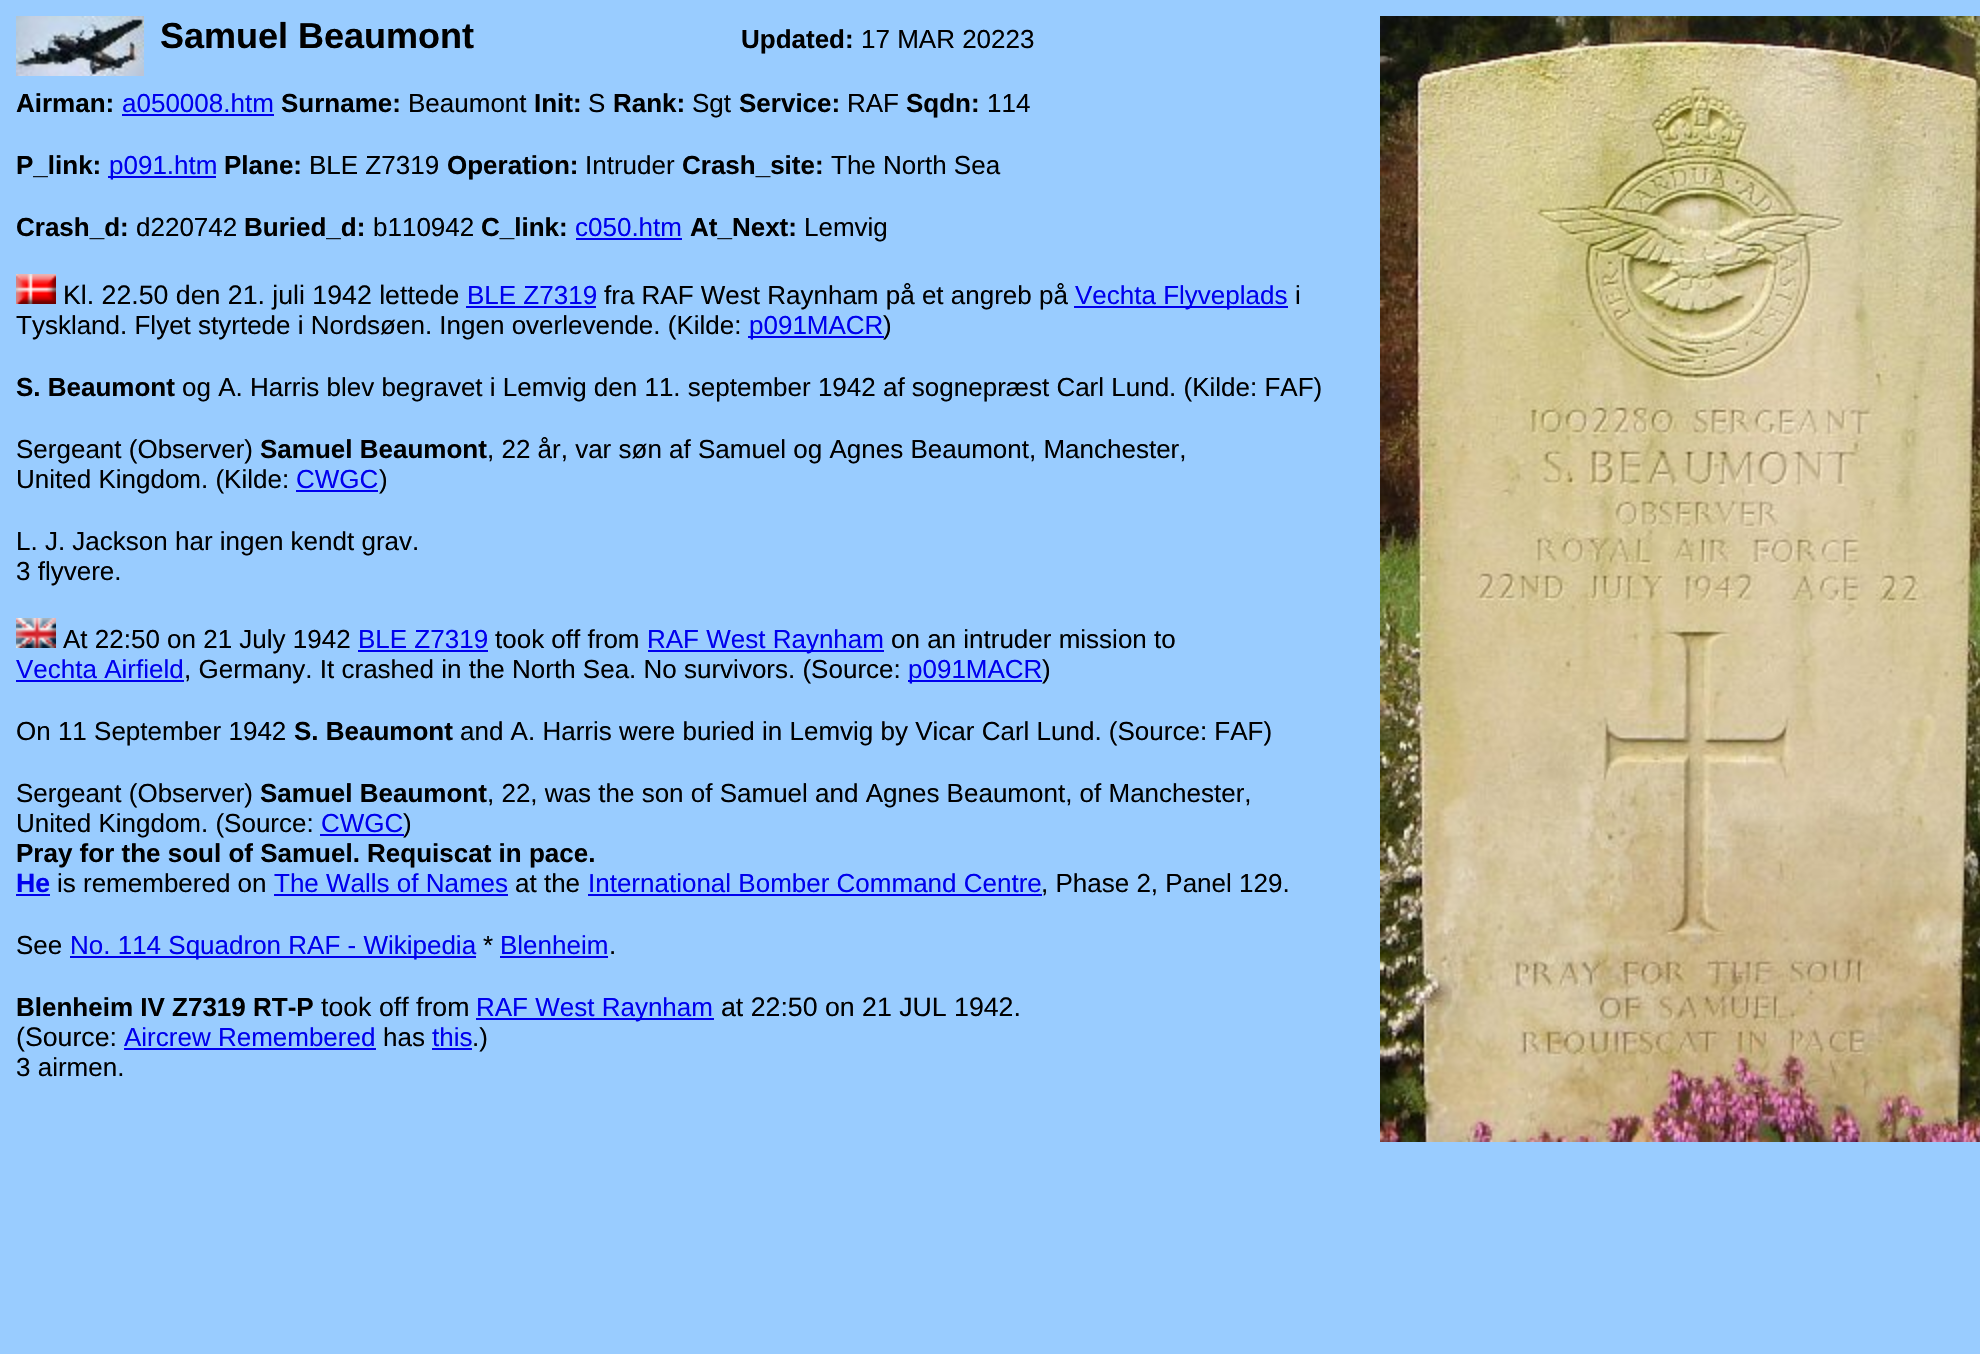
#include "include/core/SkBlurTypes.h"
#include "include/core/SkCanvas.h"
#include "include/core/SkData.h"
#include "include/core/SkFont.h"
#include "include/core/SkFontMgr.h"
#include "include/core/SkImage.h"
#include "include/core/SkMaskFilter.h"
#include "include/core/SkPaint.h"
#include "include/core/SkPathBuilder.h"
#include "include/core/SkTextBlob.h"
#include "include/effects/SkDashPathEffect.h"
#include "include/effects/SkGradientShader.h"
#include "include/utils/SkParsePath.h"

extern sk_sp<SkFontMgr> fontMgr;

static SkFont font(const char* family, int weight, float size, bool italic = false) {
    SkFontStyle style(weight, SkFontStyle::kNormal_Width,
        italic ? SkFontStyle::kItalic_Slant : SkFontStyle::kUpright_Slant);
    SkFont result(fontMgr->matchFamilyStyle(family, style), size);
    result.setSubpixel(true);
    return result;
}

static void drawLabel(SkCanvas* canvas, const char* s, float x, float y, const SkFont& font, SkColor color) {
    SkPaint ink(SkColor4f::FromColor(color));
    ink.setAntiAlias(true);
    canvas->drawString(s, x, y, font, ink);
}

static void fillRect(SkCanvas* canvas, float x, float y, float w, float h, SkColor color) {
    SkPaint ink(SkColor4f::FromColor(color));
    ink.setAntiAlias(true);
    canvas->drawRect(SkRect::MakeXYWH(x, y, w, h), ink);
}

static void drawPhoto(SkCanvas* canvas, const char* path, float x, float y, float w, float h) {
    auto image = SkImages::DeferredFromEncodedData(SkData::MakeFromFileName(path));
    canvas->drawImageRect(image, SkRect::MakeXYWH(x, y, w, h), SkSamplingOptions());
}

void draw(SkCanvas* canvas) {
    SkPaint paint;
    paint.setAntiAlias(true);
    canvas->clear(0xFF99CCFF);
    drawPhoto(canvas, "assets/img1.png", 16, 16, 128, 60);
    drawPhoto(canvas, "assets/img2.png", 1380, 16, 600, 1126);
    SkFont font1 = font("Liberation Sans", 700, 36);
    drawLabel(canvas, "Samuel Beaumont", 160, 48, font1, 0xFF000000);
    SkFont font2 = font("Liberation Sans", 700, 26);
    drawLabel(canvas, "Updated:", 741, 48, font2, 0xFF000000);
    SkFont font3 = font("Liberation Sans", 400, 26);
    drawLabel(canvas, "17 MAR 20223", 861, 48, font3, 0xFF000000);
    drawLabel(canvas, "Airman:", 16, 112, font2, 0xFF000000);
    drawLabel(canvas, "a050008.htm", 122, 112, font3, 0xFF0000EE);
    fillRect(canvas, 122, 114, 152, 2, 0xFF0000EE);
    drawLabel(canvas, "Surname:", 281, 112, font2, 0xFF000000);
    drawLabel(canvas, "Beaumont", 408, 112, font3, 0xFF000000);
    drawLabel(canvas, "Init:", 534, 112, font2, 0xFF000000);
    drawLabel(canvas, "S", 588, 112, font3, 0xFF000000);
    drawLabel(canvas, "Rank:", 613, 112, font2, 0xFF000000);
    drawLabel(canvas, "Sgt", 692, 112, font3, 0xFF000000);
    drawLabel(canvas, "Service:", 739, 112, font2, 0xFF000000);
    drawLabel(canvas, "RAF", 847, 112, font3, 0xFF000000);
    drawLabel(canvas, "Sqdn:", 906, 112, font2, 0xFF000000);
    drawLabel(canvas, "114", 987, 112, font3, 0xFF000000);
    drawLabel(canvas, "P_link:", 16, 174, font2, 0xFF000000);
    fillRect(canvas, 108, 176, 108, 2, 0xFF0000EE);
    drawLabel(canvas, "p091.htm", 109, 174, font3, 0xFF0000EE);
    drawLabel(canvas, "Plane:", 224, 174, font2, 0xFF000000);
    drawLabel(canvas, "BLE Z7319", 309, 174, font3, 0xFF000000);
    drawLabel(canvas, "Operation:", 447, 174, font2, 0xFF000000);
    drawLabel(canvas, "Intruder", 585, 174, font3, 0xFF000000);
    drawLabel(canvas, "Crash_site:", 682, 174, font2, 0xFF000000);
    drawLabel(canvas, "The North Sea", 831, 174, font3, 0xFF000000);
    drawLabel(canvas, "Crash_d:", 16, 236, font2, 0xFF000000);
    drawLabel(canvas, "d220742", 136, 236, font3, 0xFF000000);
    drawLabel(canvas, "Buried_d:", 244, 236, font2, 0xFF000000);
    drawLabel(canvas, "b110942", 373, 236, font3, 0xFF000000);
    drawLabel(canvas, "C_link:", 481, 236, font2, 0xFF000000);
    drawLabel(canvas, "c050.htm", 575, 236, font3, 0xFF0000EE);
    fillRect(canvas, 576, 238, 106, 2, 0xFF0000EE);
    drawLabel(canvas, "At_Next:", 690, 236, font2, 0xFF000000);
    drawLabel(canvas, "Lemvig", 804, 236, font3, 0xFF000000);
    drawPhoto(canvas, "assets/img3.png", 16, 274, 40, 30);
    SkFont font4 = font("Liberation Sans", 400, 26.7f);
    drawLabel(canvas, "Kl. 22.50 den 21. juli 1942 lettede", 63, 304, font4, 0xFF000000);
    drawLabel(canvas, "BLE Z7319", 467, 304, font3, 0xFF0000EE);
    fillRect(canvas, 466, 306, 130, 2, 0xFF0000EE);
    drawLabel(canvas, "fra RAF West Raynham på et angreb på", 604, 304, font3, 0xFF000000);
    fillRect(canvas, 1074, 306, 214, 2, 0xFF0000EE);
    drawLabel(canvas, "Vechta Flyveplads", 1075, 304, font3, 0xFF0000EE);
    drawLabel(canvas, "i", 1295, 304, font3, 0xFF000000);
    drawLabel(canvas, "Tyskland. Flyet styrtede i Nordsøen. Ingen overlevende. (Kilde:", 16, 334, font3, 0xFF000000);
    fillRect(canvas, 748, 336, 136, 2, 0xFF0000EE);
    drawLabel(canvas, "p091MACR", 749, 334, font3, 0xFF0000EE);
    drawLabel(canvas, ")", 883, 334, font3, 0xFF000000);
    drawLabel(canvas, "S. Beaumont", 16, 396, font2, 0xFF000000);
    drawLabel(canvas, "og A. Harris blev begravet i Lemvig den 11. september 1942 af sognepræst Carl Lund. (Kilde: FAF)", 182, 396, font3, 0xFF000000);
    drawLabel(canvas, "Sergeant (Observer)", 16, 458, font3, 0xFF000000);
    drawLabel(canvas, "Samuel Beaumont", 260, 458, font2, 0xFF000000);
    drawLabel(canvas, ", 22 år, var søn af Samuel og Agnes Beaumont, Manchester,", 487, 458, font3, 0xFF000000);
    drawLabel(canvas, "United Kingdom. (Kilde:", 16, 488, font3, 0xFF000000);
    drawLabel(canvas, "CWGC", 296, 488, font3, 0xFF0000EE);
    drawLabel(canvas, ")", 379, 488, font3, 0xFF000000);
    fillRect(canvas, 296, 490, 82, 2, 0xFF0000EE);
    drawLabel(canvas, "L. J. Jackson har ingen kendt grav.", 16, 550, font3, 0xFF000000);
    drawLabel(canvas, "3 flyvere.", 16, 580, font3, 0xFF000000);
    drawPhoto(canvas, "assets/img4.png", 16, 618, 40, 30);
    drawLabel(canvas, "At 22:50 on 21 July 1942", 63, 648, font3, 0xFF000000);
    drawLabel(canvas, "BLE Z7319", 358, 648, font3, 0xFF0000EE);
    fillRect(canvas, 358, 650, 130, 2, 0xFF0000EE);
    drawLabel(canvas, "took off from", 495, 648, font3, 0xFF000000);
    fillRect(canvas, 648, 650, 236, 2, 0xFF0000EE);
    drawLabel(canvas, "RAF West Raynham", 647, 648, font3, 0xFF0000EE);
    drawLabel(canvas, "on an intruder mission to", 891, 648, font3, 0xFF000000);
    drawLabel(canvas, "Vechta Airfield", 16, 678, font3, 0xFF0000EE);
    drawLabel(canvas, ", Germany. It crashed in the North Sea. No survivors. (Source:", 184, 678, font3, 0xFF000000);
    fillRect(canvas, 16, 680, 168, 2, 0xFF0000EE);
    fillRect(canvas, 908, 680, 134, 2, 0xFF0000EE);
    drawLabel(canvas, "p091MACR", 908, 678, font3, 0xFF0000EE);
    drawLabel(canvas, ")", 1042, 678, font3, 0xFF000000);
    drawLabel(canvas, "On 11 September 1942", 16, 740, font3, 0xFF000000);
    drawLabel(canvas, "S. Beaumont", 294, 740, font2, 0xFF000000);
    drawLabel(canvas, "and A. Harris were buried in Lemvig by Vicar Carl Lund. (Source: FAF)", 460, 740, font3, 0xFF000000);
    drawLabel(canvas, "Sergeant (Observer)", 16, 802, font3, 0xFF000000);
    drawLabel(canvas, "Samuel Beaumont", 260, 802, font2, 0xFF000000);
    drawLabel(canvas, ", 22, was the son of Samuel and Agnes Beaumont, of Manchester,", 487, 802, font3, 0xFF000000);
    drawLabel(canvas, "United Kingdom. (Source:", 16, 832, font3, 0xFF000000);
    drawLabel(canvas, "CWGC", 321, 832, font3, 0xFF0000EE);
    fillRect(canvas, 320, 834, 84, 2, 0xFF0000EE);
    drawLabel(canvas, ")", 403, 832, font3, 0xFF000000);
    drawLabel(canvas, "Pray for the soul of Samuel. Requiscat in pace.", 16, 862, font2, 0xFF000000);
    SkFont font5 = font("Liberation Sans", 700, 26.7f);
    drawLabel(canvas, "He", 16, 892, font5, 0xFF0000EE);
    fillRect(canvas, 16, 894, 34, 2, 0xFF0000EE);
    drawLabel(canvas, "is remembered on", 57, 892, font3, 0xFF000000);
    drawLabel(canvas, "The Walls of Names", 274, 892, font3, 0xFF0000EE);
    fillRect(canvas, 274, 894, 234, 2, 0xFF0000EE);
    drawLabel(canvas, "at the", 515, 892, font3, 0xFF000000);
    drawLabel(canvas, "International Bomber Command Centre", 588, 892, font3, 0xFF0000EE);
    drawLabel(canvas, ", Phase 2, Panel 129.", 1041, 892, font3, 0xFF000000);
    fillRect(canvas, 588, 894, 454, 2, 0xFF0000EE);
    drawLabel(canvas, "See", 16, 954, font3, 0xFF000000);
    fillRect(canvas, 70, 956, 406, 2, 0xFF0000EE);
    drawLabel(canvas, "No. 114 Squadron RAF - Wikipedia", 70, 954, font3, 0xFF0000EE);
    drawLabel(canvas, "*", 483, 954, font3, 0xFF000000);
    drawLabel(canvas, "Blenheim", 500, 954, font3, 0xFF0000EE);
    drawLabel(canvas, ".", 609, 954, font3, 0xFF000000);
    fillRect(canvas, 500, 956, 108, 2, 0xFF0000EE);
    drawLabel(canvas, "Blenheim IV Z7319 RT-P", 16, 1016, font2, 0xFF000000);
    drawLabel(canvas, "took off from", 321, 1016, font4, 0xFF000000);
    fillRect(canvas, 476, 1018, 238, 2, 0xFF0000EE);
    drawLabel(canvas, "RAF West Raynham", 476, 1016, font3, 0xFF0000EE);
    drawLabel(canvas, "at 22:50 on 21 JUL 1942.", 721, 1016, font4, 0xFF000000);
    drawLabel(canvas, "(Source:", 16, 1046, font4, 0xFF000000);
    drawLabel(canvas, "Aircrew Remembered", 124, 1046, font3, 0xFF0000EE);
    fillRect(canvas, 124, 1048, 252, 2, 0xFF0000EE);
    drawLabel(canvas, "has", 383, 1046, font3, 0xFF000000);
    drawLabel(canvas, "this", 432, 1046, font3, 0xFF0000EE);
    drawLabel(canvas, ".)", 472, 1046, font3, 0xFF000000);
    fillRect(canvas, 432, 1048, 40, 2, 0xFF0000EE);
    drawLabel(canvas, "3 airmen.", 16, 1076, font3, 0xFF000000);
}
